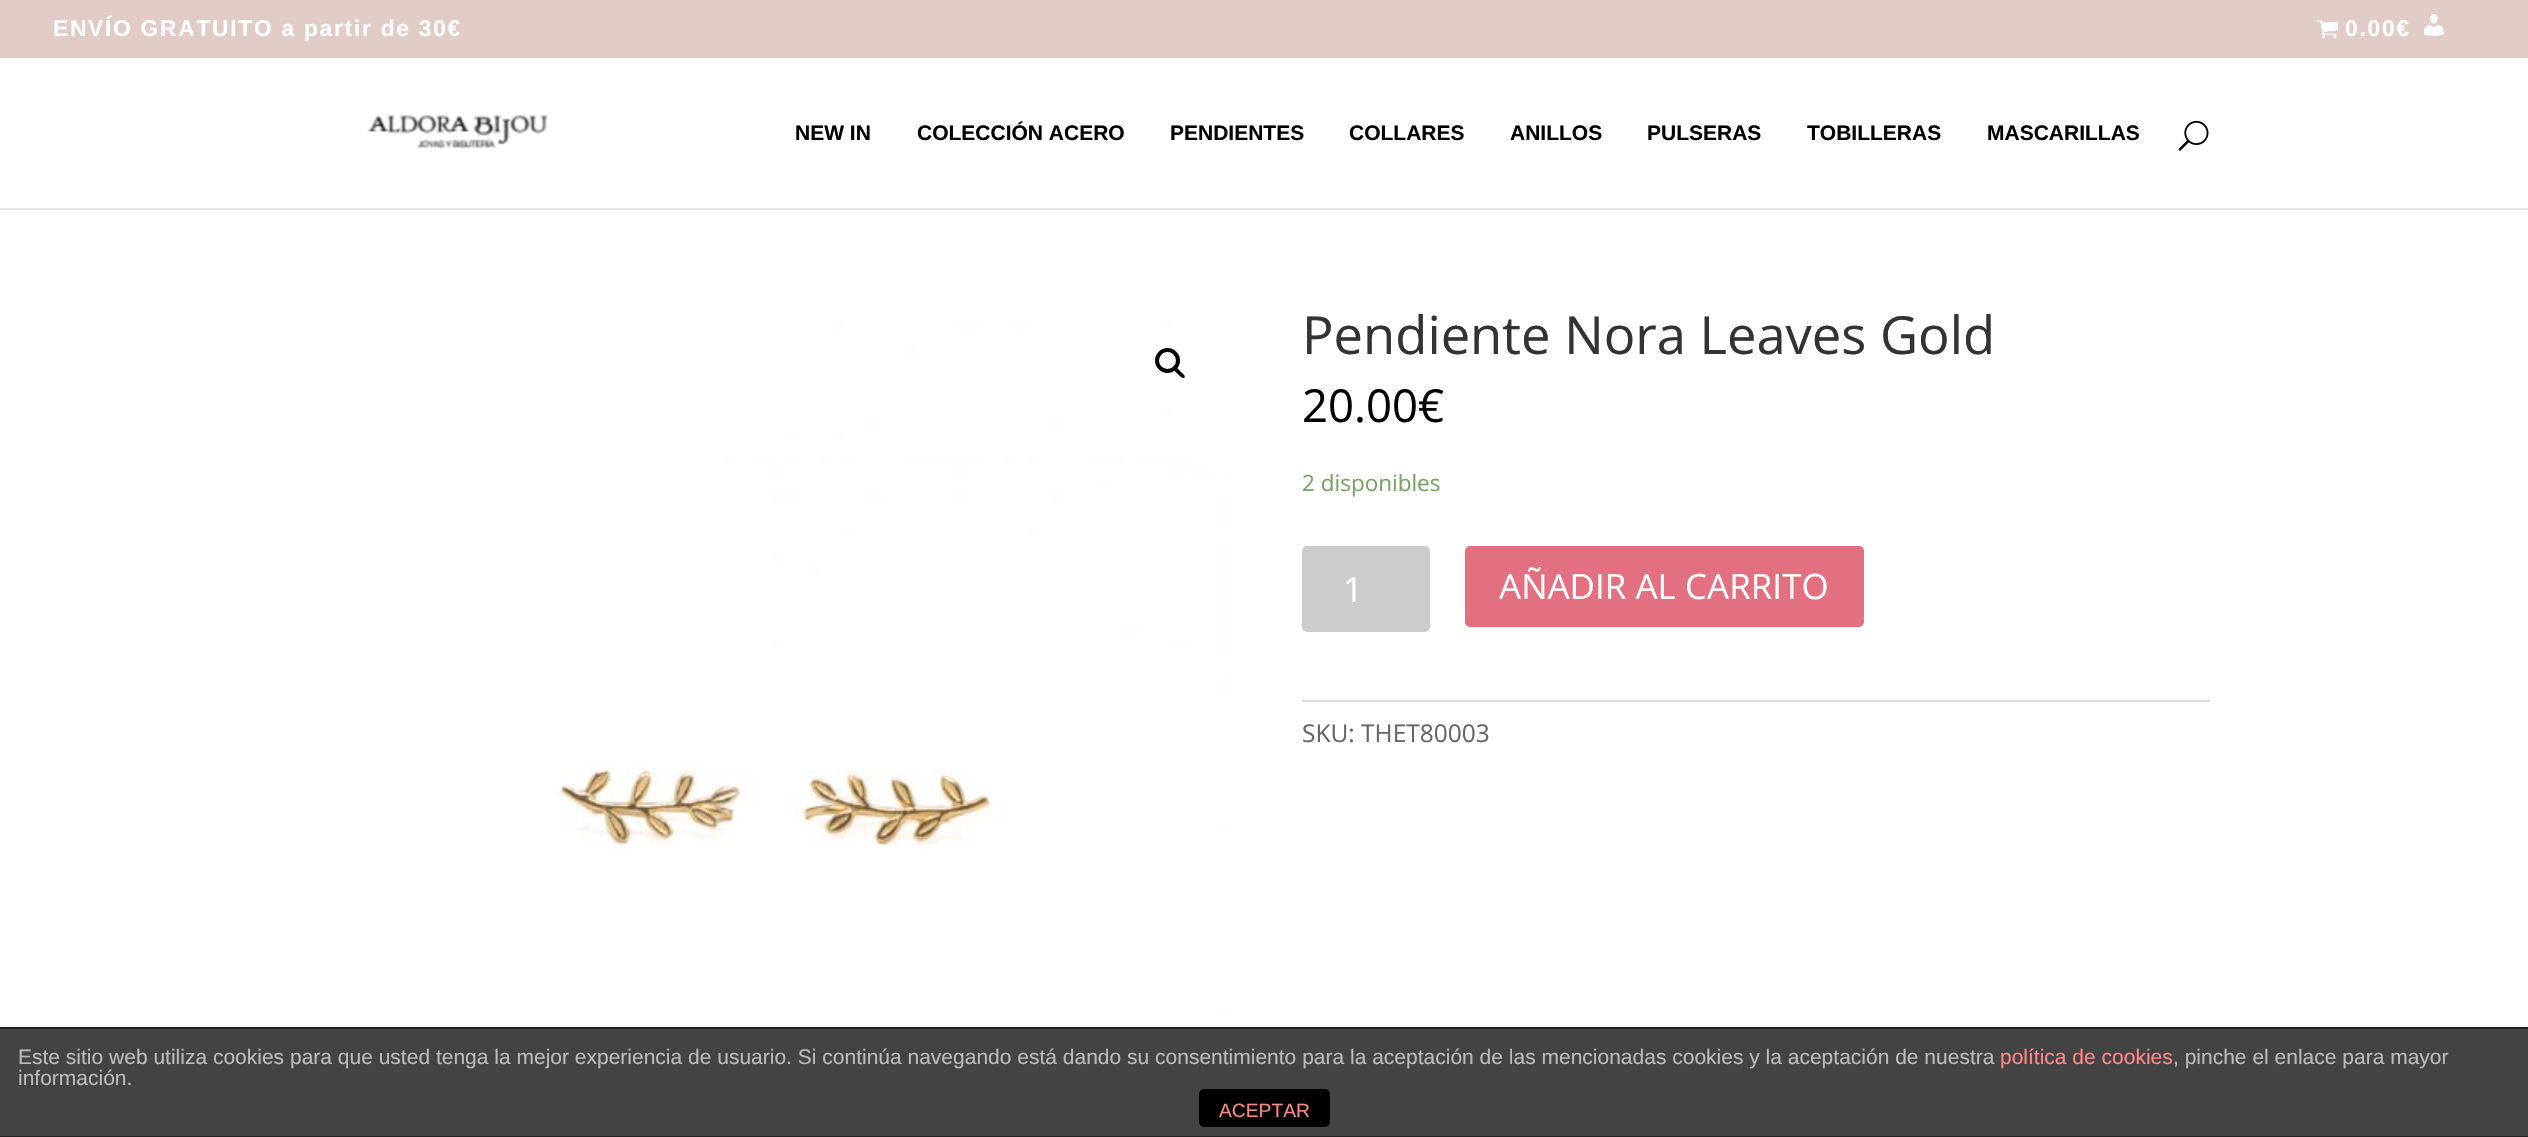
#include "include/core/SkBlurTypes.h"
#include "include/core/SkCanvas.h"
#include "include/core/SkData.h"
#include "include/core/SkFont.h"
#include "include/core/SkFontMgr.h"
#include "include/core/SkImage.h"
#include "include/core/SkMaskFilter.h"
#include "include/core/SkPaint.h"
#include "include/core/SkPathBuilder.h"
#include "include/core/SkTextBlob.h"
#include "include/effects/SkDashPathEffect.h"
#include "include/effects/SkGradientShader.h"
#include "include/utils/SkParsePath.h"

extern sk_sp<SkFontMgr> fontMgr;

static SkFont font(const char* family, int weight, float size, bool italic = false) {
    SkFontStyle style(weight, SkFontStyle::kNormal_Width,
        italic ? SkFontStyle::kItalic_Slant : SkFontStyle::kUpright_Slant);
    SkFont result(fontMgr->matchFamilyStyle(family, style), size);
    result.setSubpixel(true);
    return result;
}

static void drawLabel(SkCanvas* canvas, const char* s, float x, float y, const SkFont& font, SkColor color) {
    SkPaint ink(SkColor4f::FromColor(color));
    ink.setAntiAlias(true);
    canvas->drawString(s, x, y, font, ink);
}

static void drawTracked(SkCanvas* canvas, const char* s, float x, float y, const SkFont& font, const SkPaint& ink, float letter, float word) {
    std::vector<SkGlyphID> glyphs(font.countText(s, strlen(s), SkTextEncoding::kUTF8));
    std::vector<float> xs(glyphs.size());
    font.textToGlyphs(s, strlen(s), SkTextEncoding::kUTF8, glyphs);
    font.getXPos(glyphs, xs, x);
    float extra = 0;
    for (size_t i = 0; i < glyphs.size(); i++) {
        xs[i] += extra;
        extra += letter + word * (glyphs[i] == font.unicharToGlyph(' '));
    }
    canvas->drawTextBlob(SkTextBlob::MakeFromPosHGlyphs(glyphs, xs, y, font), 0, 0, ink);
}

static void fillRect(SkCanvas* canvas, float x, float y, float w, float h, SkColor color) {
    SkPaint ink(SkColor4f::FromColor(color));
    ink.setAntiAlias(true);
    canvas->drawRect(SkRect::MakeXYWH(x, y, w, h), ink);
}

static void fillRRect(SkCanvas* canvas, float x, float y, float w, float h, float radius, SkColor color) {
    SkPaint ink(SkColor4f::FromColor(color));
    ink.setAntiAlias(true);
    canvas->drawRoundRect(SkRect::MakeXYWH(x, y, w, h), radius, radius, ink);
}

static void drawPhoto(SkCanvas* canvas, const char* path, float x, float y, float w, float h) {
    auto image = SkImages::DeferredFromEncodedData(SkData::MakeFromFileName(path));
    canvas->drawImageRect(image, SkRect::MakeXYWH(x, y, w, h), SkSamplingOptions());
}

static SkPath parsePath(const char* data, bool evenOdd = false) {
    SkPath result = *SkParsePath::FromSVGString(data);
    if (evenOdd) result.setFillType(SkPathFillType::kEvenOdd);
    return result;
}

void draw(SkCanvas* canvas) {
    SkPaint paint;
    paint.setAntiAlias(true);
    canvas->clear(0xFFFFFFFF);
    fillRect(canvas, 0, 0, 2528, 58, 0xFFE0CBC7);
    SkFont font1 = font("Liberation Sans", 700, 22.75f);
    paint.setColor(0xFFFFFFFF);
    drawTracked(canvas, "ENVÍO GRATUITO a partir de 30€", 53, 36, font1, paint, 1.75f, 0);
    drawPhoto(canvas, "assets/img1.png", 2317, 20, 22, 19);
    drawTracked(canvas, "0.00€", 2345, 36, font1, paint, 1.75f, 0);
    drawPhoto(canvas, "assets/img2.png", 2424, 14, 20, 22);
    paint.setColor(0xFFE6E6E6);
    canvas->drawPath(parsePath("M0 208V210H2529V60V208Z"), paint);
    drawPhoto(canvas, "assets/img3.png", 367, 114, 182, 35);
    SkFont font2 = font("Liberation Sans", 700, 21);
    drawLabel(canvas, "NEW IN", 795, 140, font2, 0xFF000000);
    drawLabel(canvas, "COLECCIÓN ACERO", 917, 140, font2, 0xFF000000);
    drawLabel(canvas, "PENDIENTES", 1170, 140, font2, 0xFF000000);
    drawLabel(canvas, "COLLARES", 1349, 140, font2, 0xFF000000);
    drawLabel(canvas, "ANILLOS", 1510, 140, font2, 0xFF000000);
    drawLabel(canvas, "PULSERAS", 1647, 140, font2, 0xFF000000);
    drawLabel(canvas, "TOBILLERAS", 1807, 140, font2, 0xFF000000);
    drawLabel(canvas, "MASCARILLAS", 1987, 140, font2, 0xFF000000);
    drawPhoto(canvas, "assets/img4.png", 2178, 120, 31, 31);
    drawPhoto(canvas, "assets/img5.png", 553, 308, 674, 719);
    paint.setStroke(true);
    paint.setStrokeWidth(4);
    paint.setColor(0xFF000000);
    canvas->drawCircle(1167.5f, 360.5f, 10.5f, paint);
    paint.setStroke(false);
    canvas->drawPath(parsePath("M1174.5 368C1176.5 366 1179.5 370.5 1180.5 371.5C1181.5 372.5 1186 375.5 1184.5 377.5C1182.5 379.5 1179 375 1178 374C1177 373 1172.5 370 1174.5 368Z"), paint);
    SkFont font3 = font("Open Sans", 400, 52.5f);
    drawLabel(canvas, "Pendiente Nora Leaves Gold", 1302, 354, font3, 0xFF333333);
    SkFont font4 = font("Open Sans", 400, 45.5f);
    drawLabel(canvas, "20.00€", 1302, 422, font4, 0xFF000000);
    SkFont font5 = font("Open Sans", 400, 22.5f);
    drawLabel(canvas, "2 disponibles", 1302, 491, font5, 0xFF77A464);
    fillRRect(canvas, 1302, 546, 128, 86, 5, 0xFFCCCCCC);
    SkFont font6 = font("Open Sans", 400, 35);
    drawLabel(canvas, "1", 1343, 602, font6, 0xFFFFFFFF);
    fillRRect(canvas, 1465, 546, 399, 81, 5, 0xFFE37081);
    drawLabel(canvas, "AÑADIR AL CARRITO", 1499, 599, font6, 0xFFFFFFFF);
    fillRect(canvas, 1302, 700, 908, 2, 0xFFDADADA);
    SkFont font7 = font("Open Sans", 400, 24.5f);
    drawLabel(canvas, "SKU: THET80003", 1302, 742, font7, 0xFF666666);
    fillRect(canvas, 0, 1029, 2528, 107, 0xFF444444);
    fillRect(canvas, 0, 1027, 2528, 2, 0xFF222222);
    fillRect(canvas, 0, 1136, 2528, 1, 0xFF222222);
    SkFont font8 = font("Liberation Sans", 400, 21);
    drawLabel(canvas, "Este sitio web utiliza cookies para que usted tenga la mejor experiencia de usuario. Si continúa navegando está dando su consentimiento para la aceptación de las mencionadas cookies y la aceptación de nuestra", 18, 1064, font8, 0xFFBBBBBB);
    drawLabel(canvas, "política de cookies", 2000, 1064, font8, 0xFFFF8888);
    drawLabel(canvas, ", pinche el enlace para mayor", 2173, 1064, font8, 0xFFBBBBBB);
    drawLabel(canvas, "información.", 18, 1085, font8, 0xFFBBBBBB);
    fillRRect(canvas, 1199, 1089, 131, 38, 5, 0xFF000000);
    SkFont font9 = font("Liberation Sans", 400, 19.25f);
    drawLabel(canvas, "ACEPTAR", 1219, 1117, font9, 0xFFFF8888);
}
